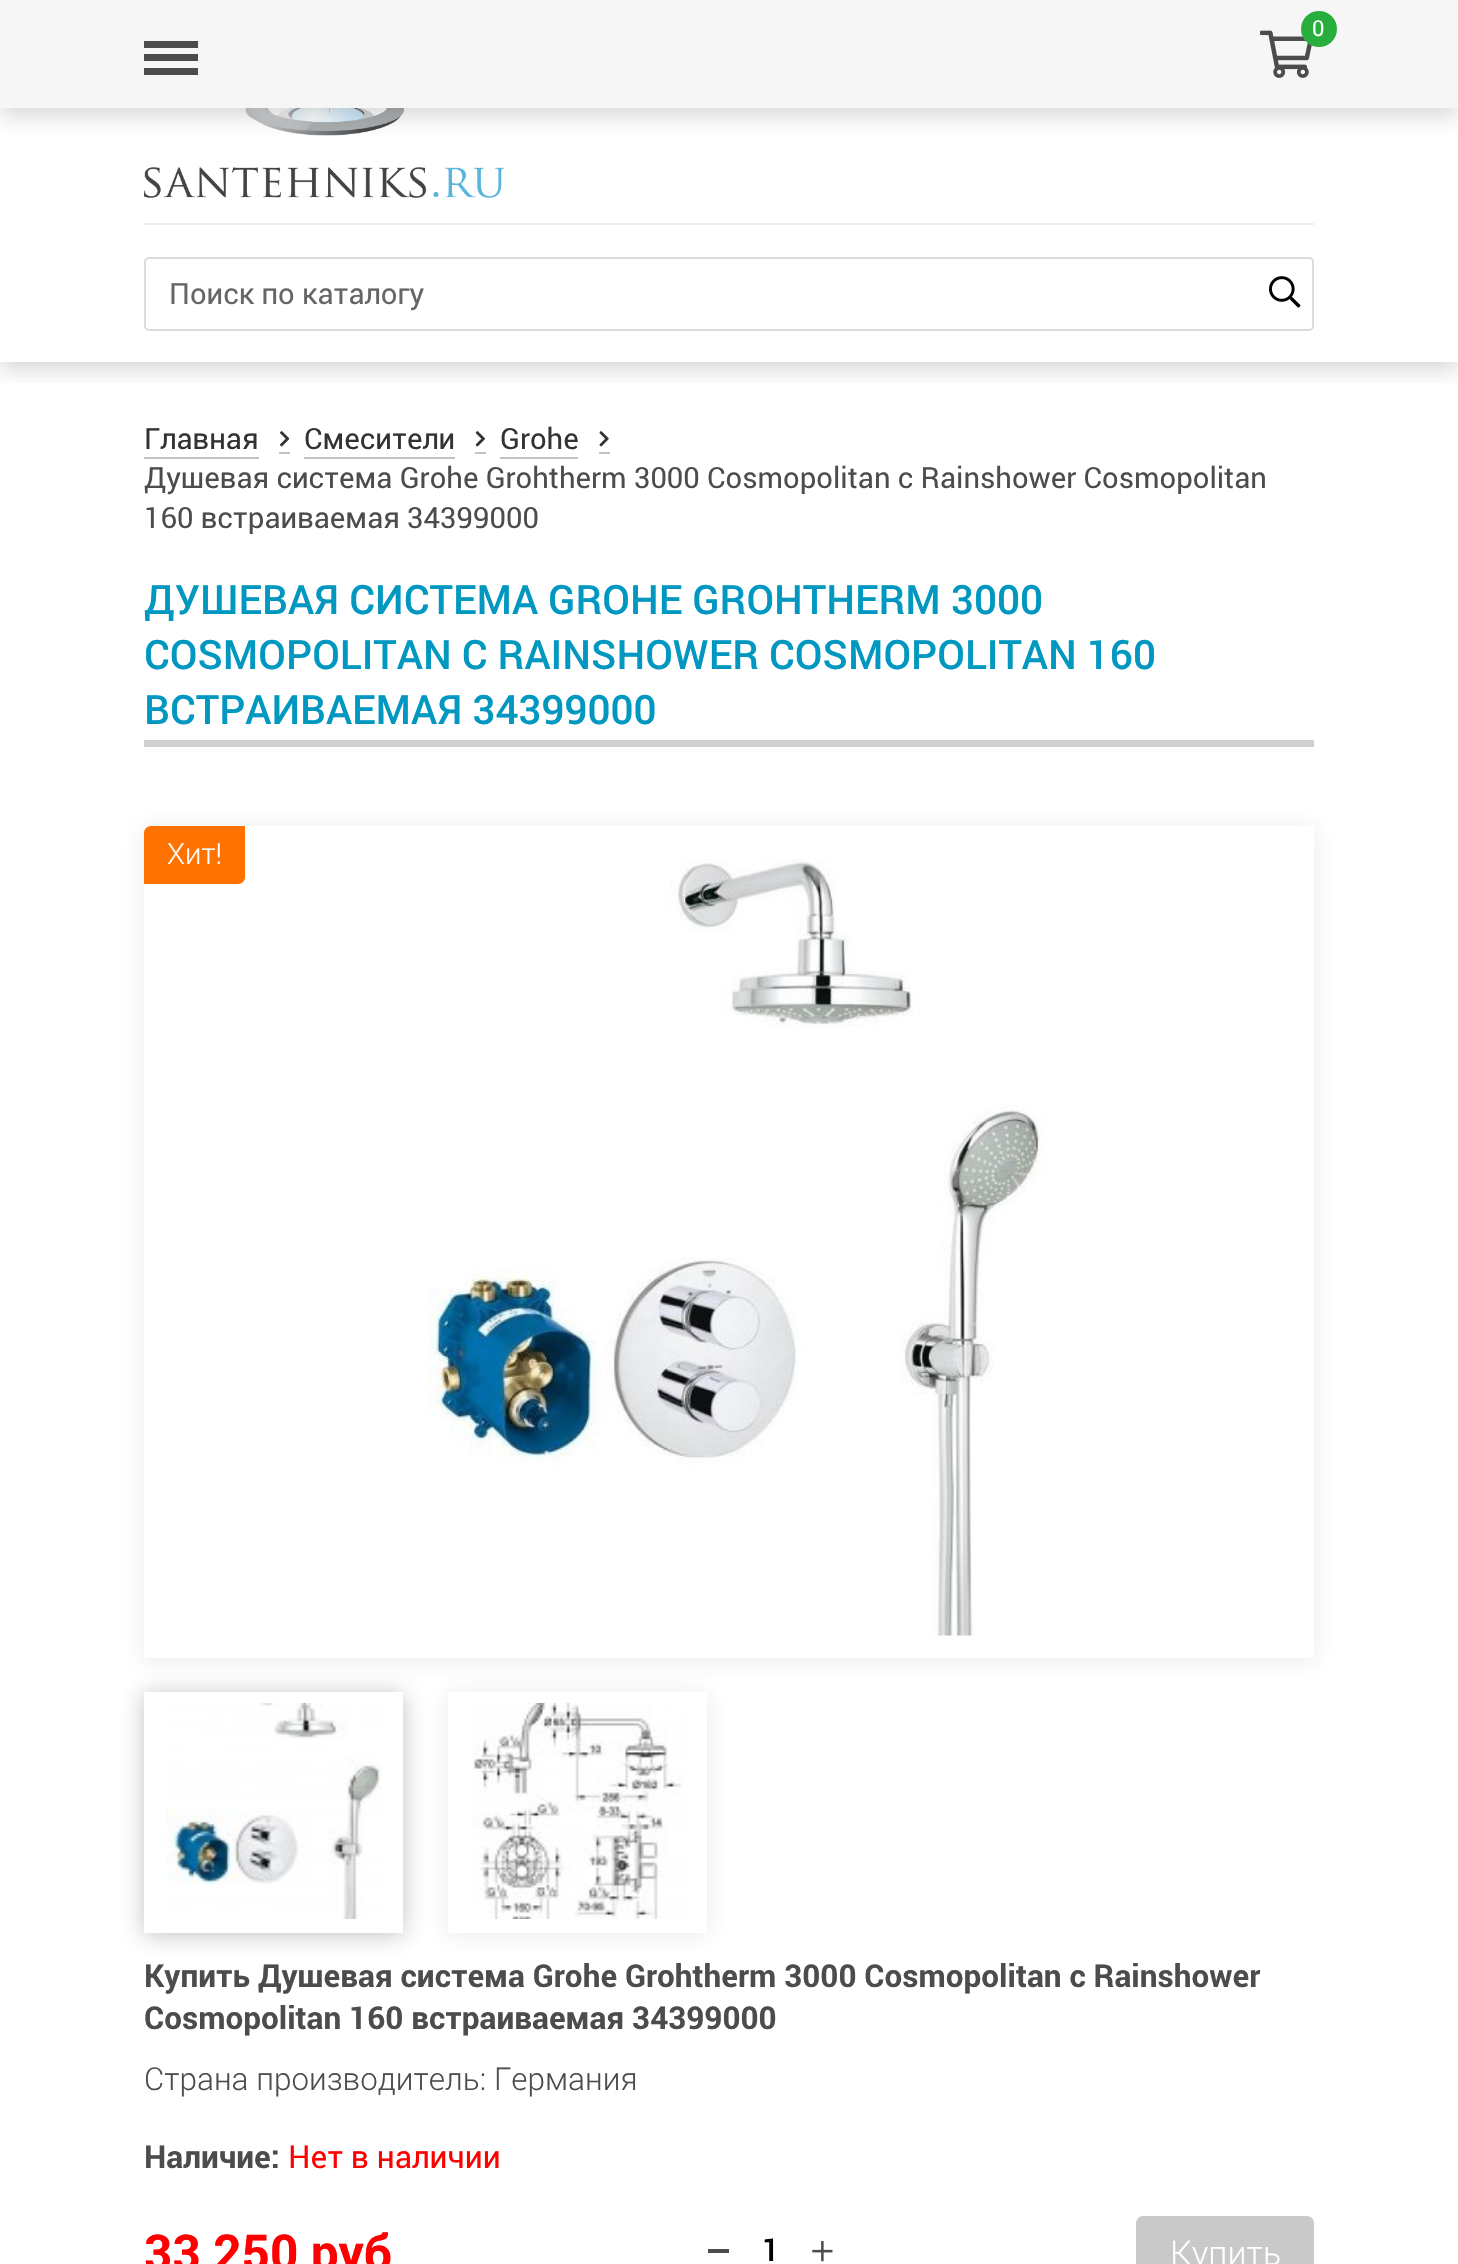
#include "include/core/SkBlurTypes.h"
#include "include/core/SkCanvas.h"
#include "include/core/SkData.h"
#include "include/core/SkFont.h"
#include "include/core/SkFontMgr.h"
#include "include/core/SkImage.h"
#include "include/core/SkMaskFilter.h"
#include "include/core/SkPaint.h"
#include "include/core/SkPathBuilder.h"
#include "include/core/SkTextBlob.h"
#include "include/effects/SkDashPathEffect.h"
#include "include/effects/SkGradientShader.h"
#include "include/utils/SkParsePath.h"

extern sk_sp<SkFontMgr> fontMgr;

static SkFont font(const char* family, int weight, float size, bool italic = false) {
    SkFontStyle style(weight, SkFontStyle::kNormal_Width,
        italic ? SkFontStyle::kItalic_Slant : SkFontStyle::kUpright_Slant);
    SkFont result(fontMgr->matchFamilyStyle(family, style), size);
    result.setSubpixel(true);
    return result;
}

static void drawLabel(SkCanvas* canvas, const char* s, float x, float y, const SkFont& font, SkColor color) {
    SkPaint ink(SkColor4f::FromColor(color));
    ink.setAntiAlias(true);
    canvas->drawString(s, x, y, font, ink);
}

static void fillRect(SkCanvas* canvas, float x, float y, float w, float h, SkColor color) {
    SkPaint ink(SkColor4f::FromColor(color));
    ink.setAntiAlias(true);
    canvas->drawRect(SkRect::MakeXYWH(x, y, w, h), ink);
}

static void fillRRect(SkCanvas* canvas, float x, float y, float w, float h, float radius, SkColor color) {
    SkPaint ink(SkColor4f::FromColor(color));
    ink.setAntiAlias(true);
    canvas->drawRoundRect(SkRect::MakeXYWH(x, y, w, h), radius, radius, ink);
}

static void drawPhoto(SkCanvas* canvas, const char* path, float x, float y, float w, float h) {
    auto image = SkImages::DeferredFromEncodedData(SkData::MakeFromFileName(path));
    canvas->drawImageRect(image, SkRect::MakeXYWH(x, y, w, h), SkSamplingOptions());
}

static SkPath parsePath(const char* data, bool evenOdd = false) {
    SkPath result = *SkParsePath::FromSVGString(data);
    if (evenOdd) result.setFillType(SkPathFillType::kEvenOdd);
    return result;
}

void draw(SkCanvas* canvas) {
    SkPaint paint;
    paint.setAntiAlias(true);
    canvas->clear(0xFFFFFFFF);
    canvas->save();
    canvas->clipRect(SkRect::MakeXYWH(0, 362, 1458, 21));
    paint.setColor(0x36323232);
    paint.setMaskFilter(SkMaskFilter::MakeBlur(kNormal_SkBlurStyle, 11));
    canvas->drawRect(SkRect::MakeXYWH(0, -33, 1458, 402), paint);
    paint.setMaskFilter(nullptr);
    canvas->restore();
    drawPhoto(canvas, "assets/img2.png", 144, 108, 360, 90);
    paint.setMaskFilter(SkMaskFilter::MakeBlur(kNormal_SkBlurStyle, 11));
    canvas->drawRect(SkRect::MakeXYWH(0, 7, 1458, 108), paint);
    paint.setMaskFilter(nullptr);
    fillRect(canvas, 0, 0, 1458, 108, 0xFFF6F6F6);
    drawPhoto(canvas, "assets/img1.png", 1260, 30, 52, 48);
    paint.setColor(0xFF27AE3D);
    canvas->drawCircle(1319, 29, 18, paint);
    SkFont font1 = font("Roboto", 400, 22);
    drawLabel(canvas, "0", 1312, 36, font1, 0xFFFFFFFF);
    fillRect(canvas, 144, 41, 54, 7, 0xFF4C4C4C);
    fillRect(canvas, 144, 54, 54, 7, 0xFF4C4C4C);
    fillRect(canvas, 144, 68, 54, 7, 0xFF4C4C4C);
    fillRect(canvas, 144, 223, 1170, 2, 0xFFEEEEEE);
    paint.setStroke(true);
    paint.setStrokeWidth(2);
    paint.setColor(0xFFDBDBDB);
    canvas->drawRoundRect(SkRect::MakeXYWH(145, 258, 1168, 72), 4, 4, paint);
    SkFont font2 = font("Roboto", 400, 29.25f);
    drawLabel(canvas, "Поиск по каталогу", 169, 304, font2, 0xFF666666);
    drawPhoto(canvas, "assets/img3.png", 1269, 276, 32, 32);
    fillRect(canvas, 144, 457, 115, 2, 0xFFC2C2C2);
    fillRect(canvas, 279, 452, 11, 2, 0xFFC2C2C2);
    drawLabel(canvas, "Главная", 144, 449, font2, 0xFF333333);
    drawPhoto(canvas, "assets/img4.png", 280, 431, 10, 16);
    fillRect(canvas, 304, 457, 151, 2, 0xFFC2C2C2);
    fillRect(canvas, 475, 452, 11, 2, 0xFFC2C2C2);
    drawLabel(canvas, "Смесители", 304, 449, font2, 0xFF333333);
    drawPhoto(canvas, "assets/img5.png", 475, 431, 10, 16);
    fillRect(canvas, 500, 457, 78, 2, 0xFFC2C2C2);
    fillRect(canvas, 599, 452, 11, 2, 0xFFC2C2C2);
    drawLabel(canvas, "Grohe", 500, 449, font2, 0xFF333333);
    drawPhoto(canvas, "assets/img6.png", 599, 431, 10, 16);
    drawLabel(canvas, "Душевая система Grohe Grohtherm 3000 Cosmopolitan с Rainshower Cosmopolitan", 144, 488, font2, 0xFF4C4C4C);
    drawLabel(canvas, "160 встраиваемая 34399000", 144, 528, font2, 0xFF4C4C4C);
    SkFont font3 = font("Roboto", 500, 40.5f);
    drawLabel(canvas, "ДУШЕВАЯ СИСТЕМА GROHE GROHTHERM 3000", 144, 614, font3, 0xFF0097C0);
    drawLabel(canvas, "COSMOPOLITAN С RAINSHOWER COSMOPOLITAN 160", 144, 669, font3, 0xFF0097C0);
    drawLabel(canvas, "ВСТРАИВАЕМАЯ 34399000", 144, 724, font3, 0xFF0097C0);
    fillRect(canvas, 144, 740, 1170, 7, 0xFFD0D0D0);
    canvas->save();
    canvas->clipPath(parsePath("M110 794H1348V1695H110ZM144 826H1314V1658H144Z", true), true);
    paint.setStroke(false);
    paint.setColor(0x1A323232);
    paint.setMaskFilter(SkMaskFilter::MakeBlur(kNormal_SkBlurStyle, 11));
    canvas->drawRect(SkRect::MakeXYWH(144, 828, 1170, 833), paint);
    paint.setMaskFilter(nullptr);
    canvas->restore();
    paint.setColor(0xFFFF7200);
    canvas->drawPath(parsePath("M151 826H245V877C245 881 242 884 238 884H144V833C144 829 147 826 151 826Z"), paint);
    SkFont font4 = font("Roboto", 300, 29.25f);
    drawLabel(canvas, "Хит!", 167, 864, font4, 0xFFFFFFFF);
    drawPhoto(canvas, "assets/img7.png", 428, 858, 619, 778);
    canvas->save();
    canvas->clipPath(parsePath("M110 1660H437V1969H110ZM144 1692H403V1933H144Z", true), true);
    paint.setColor(0x4D323232);
    paint.setMaskFilter(SkMaskFilter::MakeBlur(kNormal_SkBlurStyle, 11));
    canvas->drawRect(SkRect::MakeXYWH(144, 1694, 259, 241), paint);
    paint.setMaskFilter(nullptr);
    canvas->restore();
    drawPhoto(canvas, "assets/img8.png", 166, 1703, 217, 216);
    canvas->save();
    canvas->clipPath(parsePath("M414 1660H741V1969H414ZM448 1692H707V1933H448Z", true), true);
    paint.setColor(0x1A323232);
    paint.setMaskFilter(SkMaskFilter::MakeBlur(kNormal_SkBlurStyle, 11));
    canvas->drawRect(SkRect::MakeXYWH(448, 1694, 259, 241), paint);
    paint.setMaskFilter(nullptr);
    canvas->restore();
    drawPhoto(canvas, "assets/img9.png", 471, 1703, 215, 216);
    SkFont font5 = font("Roboto", 700, 31.5f);
    drawLabel(canvas, "Купить Душевая система Grohe Grohtherm 3000 Cosmopolitan с Rainshower", 144, 1987, font5, 0xFF4C4C4C);
    drawLabel(canvas, "Cosmopolitan 160 встраиваемая 34399000", 144, 2029, font5, 0xFF4C4C4C);
    SkFont font6 = font("Roboto", 300, 31.5f);
    drawLabel(canvas, "Страна производитель: Германия", 144, 2090, font6, 0xFF4C4C4C);
    drawLabel(canvas, "Наличие:", 144, 2168, font5, 0xFF4C4C4C);
    SkFont font7 = font("Roboto", 400, 31.5f);
    drawLabel(canvas, "Нет в наличии", 288, 2168, font7, 0xFFFF0000);
    SkFont font8 = font("Roboto", 700, 49.5f);
    drawLabel(canvas, "33 250 руб", 144, 2270, font8, 0xFFFF0000);
    fillRect(canvas, 708, 2249, 21, 4, 0xFF4C4C4C);
    SkFont font9 = font("Roboto", 500, 31.5f);
    drawLabel(canvas, "1", 762, 2261, font9, 0xFF000000);
    drawPhoto(canvas, "assets/img10.png", 812, 2241, 21, 21);
    fillRRect(canvas, 1136, 2216, 178, 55, 7, 0xFFC9C9C9);
    SkFont font10 = font("Roboto", 300, 34);
    drawLabel(canvas, "Купить", 1170, 2265, font10, 0xFFFFFFFF);
}
